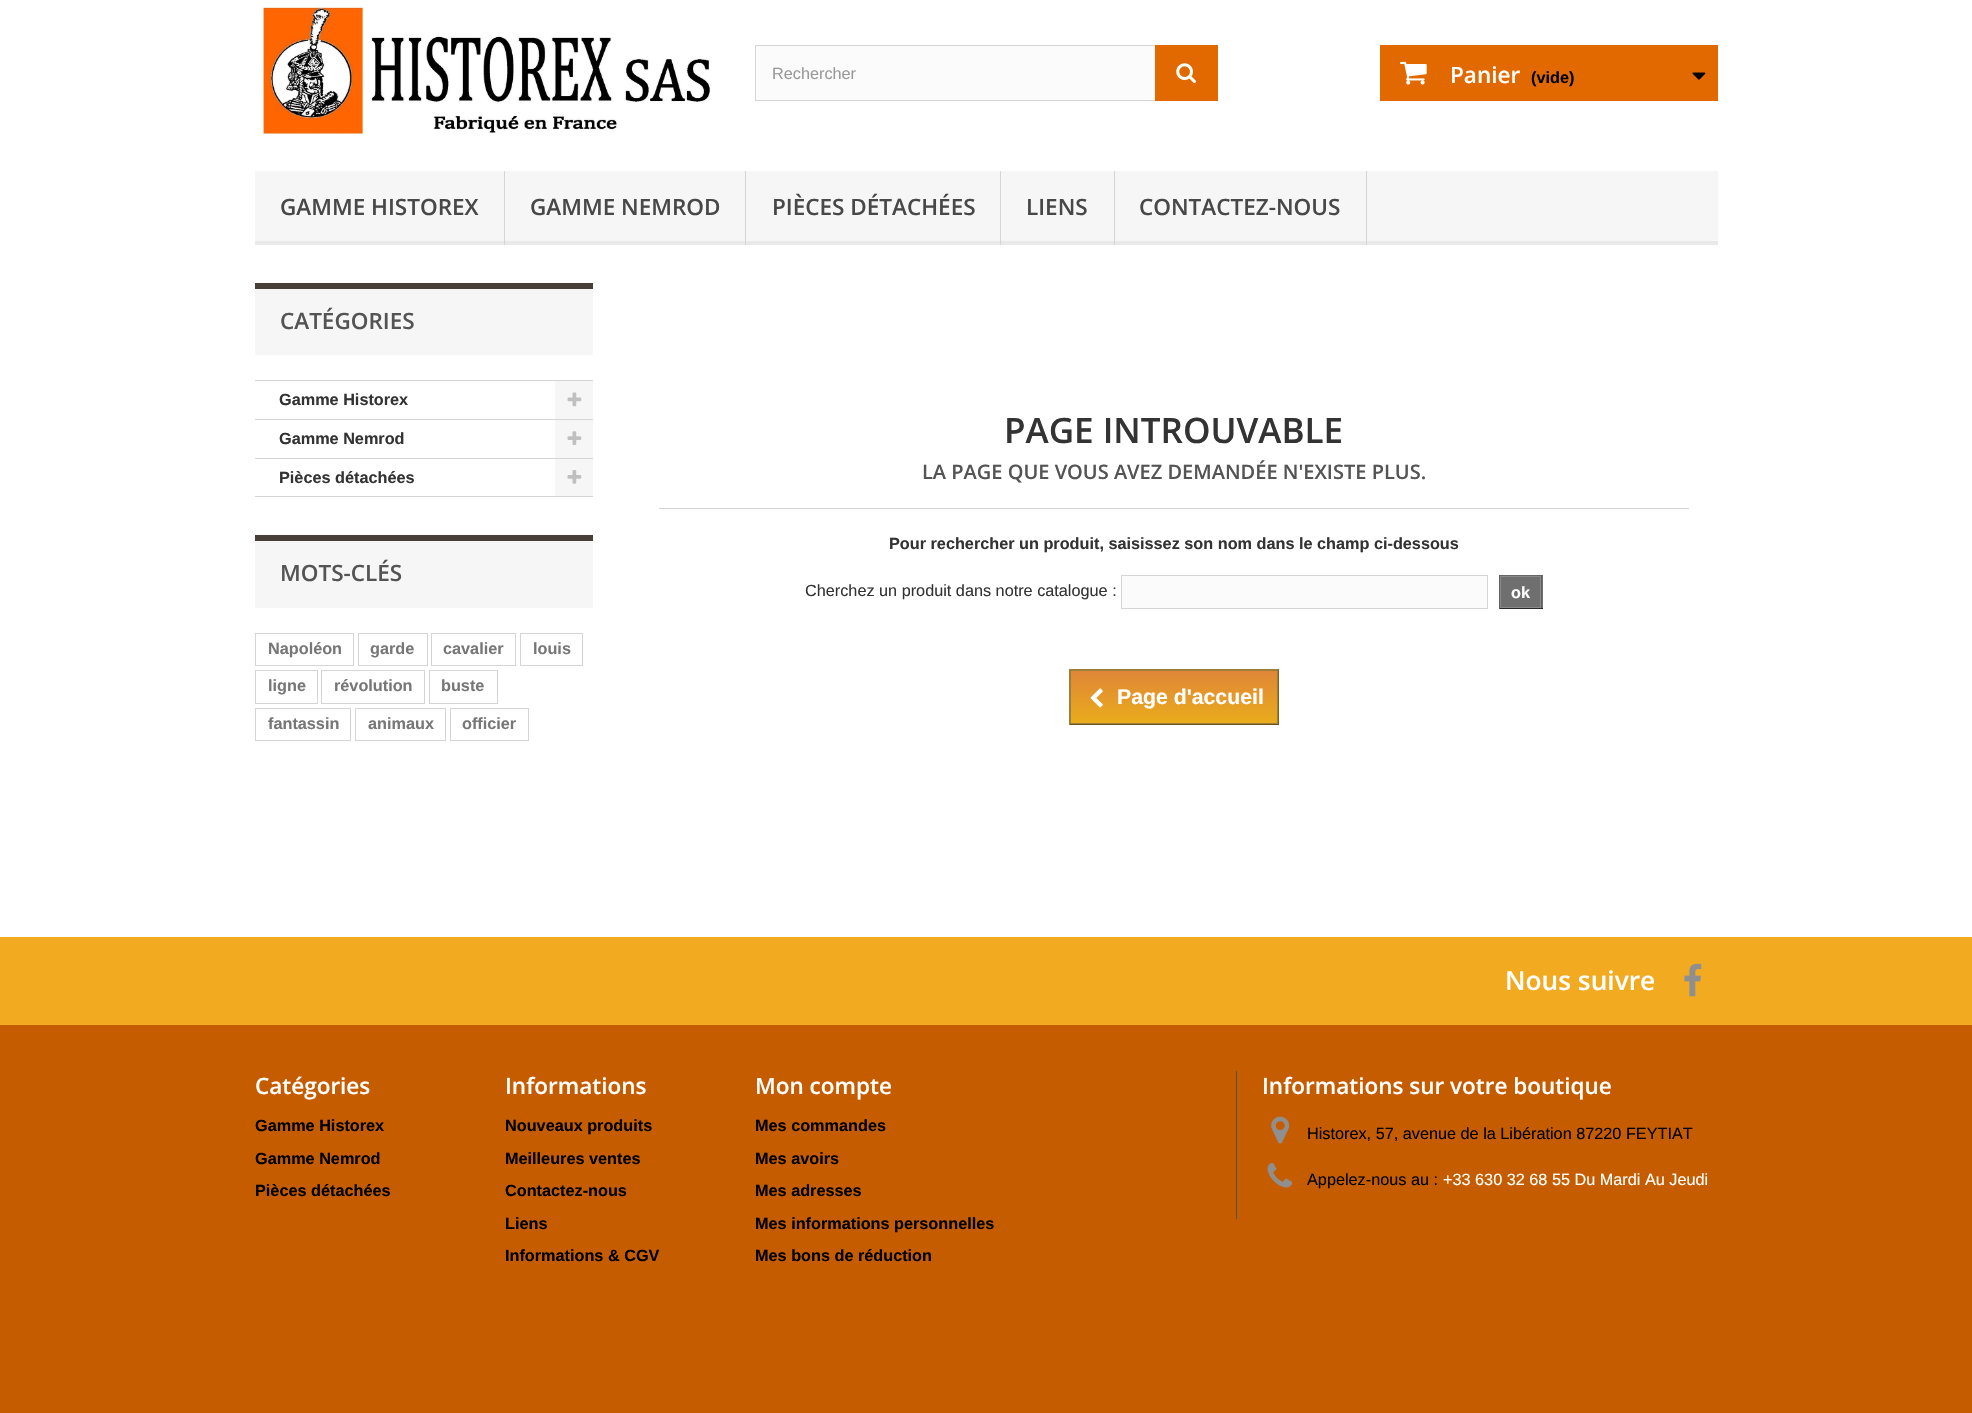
#include "include/core/SkBlurTypes.h"
#include "include/core/SkCanvas.h"
#include "include/core/SkData.h"
#include "include/core/SkFont.h"
#include "include/core/SkFontMgr.h"
#include "include/core/SkImage.h"
#include "include/core/SkMaskFilter.h"
#include "include/core/SkPaint.h"
#include "include/core/SkPathBuilder.h"
#include "include/core/SkTextBlob.h"
#include "include/effects/SkDashPathEffect.h"
#include "include/effects/SkGradientShader.h"
#include "include/utils/SkParsePath.h"

extern sk_sp<SkFontMgr> fontMgr;

static SkFont font(const char* family, int weight, float size, bool italic = false) {
    SkFontStyle style(weight, SkFontStyle::kNormal_Width,
        italic ? SkFontStyle::kItalic_Slant : SkFontStyle::kUpright_Slant);
    SkFont result(fontMgr->matchFamilyStyle(family, style), size);
    result.setSubpixel(true);
    return result;
}

static void drawLabel(SkCanvas* canvas, const char* s, float x, float y, const SkFont& font, SkColor color) {
    SkPaint ink(SkColor4f::FromColor(color));
    ink.setAntiAlias(true);
    canvas->drawString(s, x, y, font, ink);
}

static void fillRect(SkCanvas* canvas, float x, float y, float w, float h, SkColor color) {
    SkPaint ink(SkColor4f::FromColor(color));
    ink.setAntiAlias(true);
    canvas->drawRect(SkRect::MakeXYWH(x, y, w, h), ink);
}

static void drawPhoto(SkCanvas* canvas, const char* path, float x, float y, float w, float h) {
    auto image = SkImages::DeferredFromEncodedData(SkData::MakeFromFileName(path));
    canvas->drawImageRect(image, SkRect::MakeXYWH(x, y, w, h), SkSamplingOptions());
}

void draw(SkCanvas* canvas) {
    SkPaint paint;
    paint.setAntiAlias(true);
    canvas->clear(0xFFFFFFFF);
    drawPhoto(canvas, "assets/img1.png", 260, 6, 451, 129);
    fillRect(canvas, 756, 46, 399, 54, 0xFFFBFBFB);
    paint.setStroke(true);
    paint.setStrokeWidth(1);
    paint.setColor(0xFFD6D4D4);
    canvas->drawRect(SkRect::MakeXYWH(755.5f, 45.5f, 462, 55), paint);
    SkFont font1 = font("Liberation Sans", 400, 16.25f);
    drawLabel(canvas, "Rechercher", 772, 79, font1, 0xFF999999);
    fillRect(canvas, 1155, 45, 63, 56, 0xFFE16900);
    drawPhoto(canvas, "assets/img2.png", 1176, 63, 20, 20);
    fillRect(canvas, 1380, 45, 338, 56, 0xFFE16900);
    drawPhoto(canvas, "assets/img3.png", 1400, 61, 27, 24);
    SkFont font2 = font("Open Sans", 600, 22.5f);
    drawLabel(canvas, "Panier", 1450, 83, font2, 0xFFFFFFFF);
    SkFont font3 = font("Liberation Sans", 700, 16.25f);
    drawLabel(canvas, "(vide)", 1531, 83, font3, 0xFF000000);
    drawPhoto(canvas, "assets/img4.png", 1692, 72, 14, 8);
    fillRect(canvas, 255, 171, 1463, 70, 0xFFF6F6F6);
    fillRect(canvas, 255, 241, 1463, 4, 0xFFE9E9E9);
    fillRect(canvas, 504, 171, 1, 74, 0xFFD6D4D4);
    drawLabel(canvas, "GAMME HISTOREX", 280, 215, font2, 0xFF484848);
    fillRect(canvas, 745, 171, 1, 74, 0xFFD6D4D4);
    drawLabel(canvas, "GAMME NEMROD", 530, 215, font2, 0xFF484848);
    fillRect(canvas, 1000, 171, 1, 74, 0xFFD6D4D4);
    drawLabel(canvas, "PIÈCES DÉTACHÉES", 772, 215, font2, 0xFF484848);
    fillRect(canvas, 1114, 171, 1, 74, 0xFFD6D4D4);
    drawLabel(canvas, "LIENS", 1026, 215, font2, 0xFF484848);
    fillRect(canvas, 1366, 171, 1, 74, 0xFFD6D4D4);
    drawLabel(canvas, "CONTACTEZ-NOUS", 1139, 215, font2, 0xFF484848);
    fillRect(canvas, 255, 289, 338, 66, 0xFFF6F6F6);
    fillRect(canvas, 255, 283, 338, 6, 0xFF483E38);
    drawLabel(canvas, "CATÉGORIES", 280, 329, font2, 0xFF555454);
    fillRect(canvas, 255, 380, 338, 1, 0xFFD6D4D4);
    fillRect(canvas, 255, 419, 338, 1, 0xFFD6D4D4);
    drawLabel(canvas, "Gamme Historex", 279, 405, font3, 0xFF333333);
    fillRect(canvas, 555, 381, 38, 38, 0xFFF6F6F6);
    drawPhoto(canvas, "assets/img5.png", 567, 392, 15, 15);
    fillRect(canvas, 255, 458, 338, 1, 0xFFD6D4D4);
    drawLabel(canvas, "Gamme Nemrod", 279, 444, font3, 0xFF333333);
    fillRect(canvas, 555, 420, 38, 38, 0xFFF6F6F6);
    drawPhoto(canvas, "assets/img6.png", 567, 431, 15, 14);
    fillRect(canvas, 255, 496, 338, 1, 0xFFD6D4D4);
    drawLabel(canvas, "Pièces détachées", 279, 483, font3, 0xFF333333);
    fillRect(canvas, 555, 459, 38, 37, 0xFFF6F6F6);
    drawPhoto(canvas, "assets/img7.png", 567, 470, 15, 14);
    fillRect(canvas, 255, 541, 338, 67, 0xFFF6F6F6);
    fillRect(canvas, 255, 535, 338, 6, 0xFF483E38);
    drawLabel(canvas, "MOTS-CLÉS", 280, 581, font2, 0xFF555454);
    canvas->drawRect(SkRect::MakeXYWH(255.5f, 633.5f, 98, 32), paint);
    drawLabel(canvas, "Napoléon", 268, 654, font3, 0xFF777777);
    canvas->drawRect(SkRect::MakeXYWH(358.5f, 633.5f, 69, 32), paint);
    drawLabel(canvas, "garde", 370, 654, font3, 0xFF777777);
    canvas->drawRect(SkRect::MakeXYWH(431.5f, 633.5f, 84, 32), paint);
    drawLabel(canvas, "cavalier", 443, 654, font3, 0xFF777777);
    canvas->drawRect(SkRect::MakeXYWH(520.5f, 633.5f, 62, 32), paint);
    drawLabel(canvas, "louis", 533, 654, font3, 0xFF777777);
    canvas->drawRect(SkRect::MakeXYWH(255.5f, 670.5f, 62, 33), paint);
    drawLabel(canvas, "ligne", 268, 691, font3, 0xFF777777);
    canvas->drawRect(SkRect::MakeXYWH(321.5f, 670.5f, 103, 33), paint);
    drawLabel(canvas, "révolution", 334, 691, font3, 0xFF777777);
    canvas->drawRect(SkRect::MakeXYWH(429.5f, 670.5f, 68, 33), paint);
    drawLabel(canvas, "buste", 441, 691, font3, 0xFF777777);
    canvas->drawRect(SkRect::MakeXYWH(255.5f, 708.5f, 95, 32), paint);
    drawLabel(canvas, "fantassin", 268, 729, font3, 0xFF777777);
    canvas->drawRect(SkRect::MakeXYWH(355.5f, 708.5f, 90, 32), paint);
    drawLabel(canvas, "animaux", 368, 729, font3, 0xFF777777);
    canvas->drawRect(SkRect::MakeXYWH(450.5f, 708.5f, 78, 32), paint);
    drawLabel(canvas, "officier", 462, 729, font3, 0xFF777777);
    SkFont font4 = font("Open Sans", 600, 35);
    drawLabel(canvas, "PAGE INTROUVABLE", 1004, 443, font4, 0xFF333333);
    fillRect(canvas, 659, 508, 1030, 1, 0xFFD6D4D4);
    SkFont font5 = font("Open Sans", 600, 20);
    drawLabel(canvas, "LA PAGE QUE VOUS AVEZ DEMANDÉE N'EXISTE PLUS.", 922, 479, font5, 0xFF555454);
    drawLabel(canvas, "Pour rechercher un produit, saisissez son nom dans le champ ci-dessous", 889, 549, font3, 0xFF333333);
    drawLabel(canvas, "Cherchez un produit dans notre catalogue :", 805, 596, font1, 0xFF333333);
    paint.setStroke(false);
    paint.setColor(0xFFFBFBFB);
    canvas->drawRect(SkRect::MakeXYWH(1121.5f, 575.5f, 366, 33), paint);
    paint.setStroke(true);
    paint.setColor(0xFFD6D4D4);
    canvas->drawRect(SkRect::MakeXYWH(1121.5f, 575.5f, 366, 33), paint);
    fillRect(canvas, 1501, 576, 42, 32, 0xFF6F6F6F);
    fillRect(canvas, 1499, 575, 44, 1, 0xFF666666);
    fillRect(canvas, 1541, 575, 1, 34, 0xFF5F5F5F);
    fillRect(canvas, 1499, 608, 44, 1, 0xFF292929);
    fillRect(canvas, 1499, 575, 1, 34, 0xFF5F5F5F);
    paint.setColor(0xFF8B8A8A);
    canvas->drawRect(SkRect::MakeXYWH(1500.5f, 576.5f, 40, 31), paint);
    drawLabel(canvas, "ok", 1511, 598, font3, 0xFFFFFFFF);
    paint.setStroke(false);
    {
        const SkColor colors[] = {0xFFDF8638, 0xFFEAAC1B};
        const float stops[] = {0, 1};
        const SkPoint ends[] = {{1174, 670}, {1174, 724}};
        paint.setShader(SkGradientShader::MakeLinear(ends, colors, stops, 2, SkTileMode::kClamp));
        paint.setAlpha(255);
    }
    canvas->drawRect(SkRect::MakeXYWH(1071, 671, 206, 52), paint);
    fillRect(canvas, 1069, 669, 210, 1, 0xFF9A8039);
    fillRect(canvas, 1278, 669, 1, 56, 0xFF7F6224);
    fillRect(canvas, 1069, 724, 210, 1, 0xFF6D531A);
    fillRect(canvas, 1069, 669, 1, 56, 0xFF9A8039);
    paint.setStroke(true);
    paint.setShader(nullptr);
    paint.setColor(0xFF9A8039);
    canvas->drawRect(SkRect::MakeXYWH(1070.5f, 670.5f, 207, 53), paint);
    drawPhoto(canvas, "assets/img8.png", 1090, 688, 13, 20);
    SkFont font6 = font("Liberation Sans", 700, 21.25f);
    drawLabel(canvas, "Page d'accueil", 1117, 704, font6, 0xFFFFFFFF);
    fillRect(canvas, 0, 1025, 1972, 388, 0xFFC55C00);
    fillRect(canvas, 0, 937, 1972, 88, 0xFFF2AA20);
    SkFont font7 = font("Open Sans", 600, 26.25f);
    drawLabel(canvas, "Nous suivre", 1505, 990, font7, 0xFFFFFFFF);
    drawPhoto(canvas, "assets/img9.png", 1684, 963, 18, 34);
    drawLabel(canvas, "Catégories", 255, 1094, font2, 0xFFFFFFFF);
    drawLabel(canvas, "Gamme Historex", 255, 1131, font3, 0xFF000000);
    drawLabel(canvas, "Gamme Nemrod", 255, 1164, font3, 0xFF000000);
    drawLabel(canvas, "Pièces détachées", 255, 1196, font3, 0xFF000000);
    drawLabel(canvas, "Informations", 505, 1094, font2, 0xFFFFFFFF);
    drawLabel(canvas, "Nouveaux produits", 505, 1131, font3, 0xFF000000);
    drawLabel(canvas, "Meilleures ventes", 505, 1164, font3, 0xFF000000);
    drawLabel(canvas, "Contactez-nous", 505, 1196, font3, 0xFF000000);
    drawLabel(canvas, "Liens", 505, 1229, font3, 0xFF000000);
    drawLabel(canvas, "Informations & CGV", 505, 1261, font3, 0xFF000000);
    drawLabel(canvas, "Mon compte", 755, 1094, font2, 0xFFFFFFFF);
    drawLabel(canvas, "Mes commandes", 755, 1131, font3, 0xFF000000);
    drawLabel(canvas, "Mes avoirs", 755, 1164, font3, 0xFF000000);
    drawLabel(canvas, "Mes adresses", 755, 1196, font3, 0xFF000000);
    drawLabel(canvas, "Mes informations personnelles", 755, 1229, font3, 0xFF000000);
    drawLabel(canvas, "Mes bons de réduction", 755, 1261, font3, 0xFF000000);
    fillRect(canvas, 1236, 1071, 1, 148, 0xFF515151);
    drawLabel(canvas, "Informations sur votre boutique", 1262, 1094, font2, 0xFFFFFFFF);
    drawPhoto(canvas, "assets/img10.png", 1271, 1116, 19, 28);
    drawLabel(canvas, "Historex, 57, avenue de la Libération 87220 FEYTIAT", 1307, 1139, font1, 0xFF000000);
    drawPhoto(canvas, "assets/img11.png", 1267, 1163, 25, 25);
    drawLabel(canvas, "Appelez-nous au :", 1307, 1185, font1, 0xFF000000);
    drawLabel(canvas, "+33 630 32 68 55 Du Mardi Au Jeudi", 1443, 1185, font1, 0xFFFFFFFF);
}
